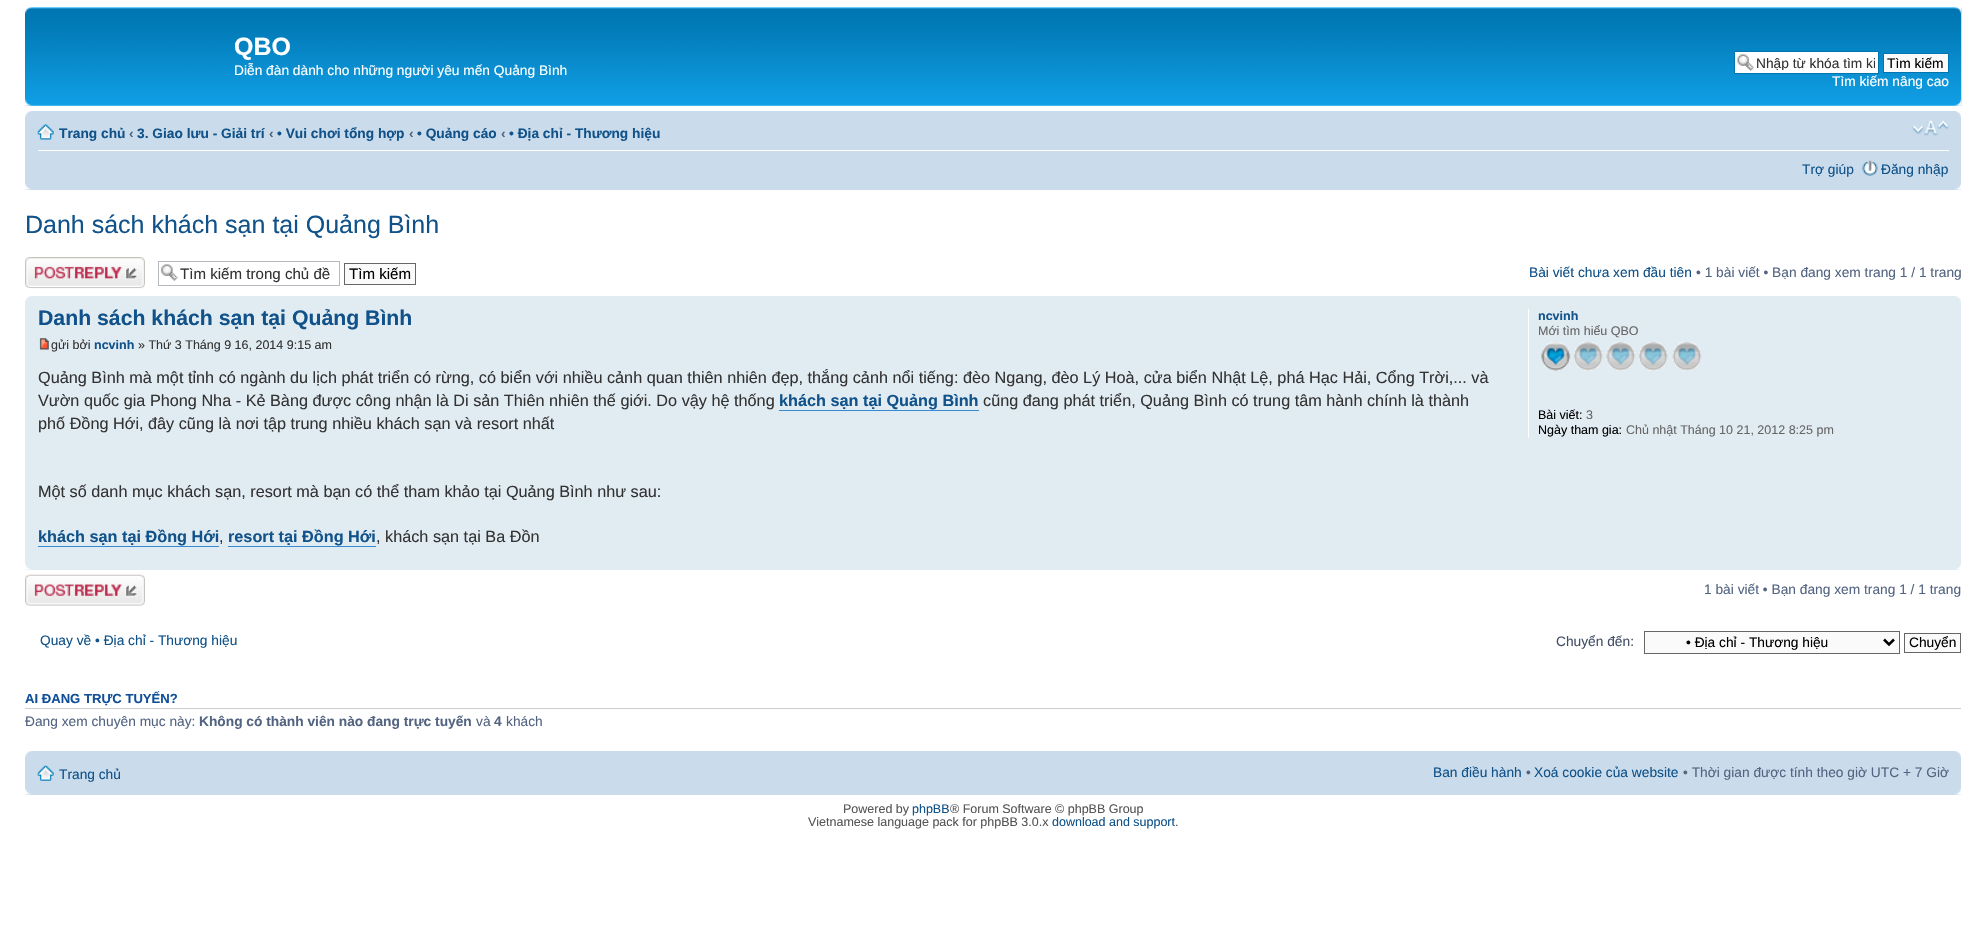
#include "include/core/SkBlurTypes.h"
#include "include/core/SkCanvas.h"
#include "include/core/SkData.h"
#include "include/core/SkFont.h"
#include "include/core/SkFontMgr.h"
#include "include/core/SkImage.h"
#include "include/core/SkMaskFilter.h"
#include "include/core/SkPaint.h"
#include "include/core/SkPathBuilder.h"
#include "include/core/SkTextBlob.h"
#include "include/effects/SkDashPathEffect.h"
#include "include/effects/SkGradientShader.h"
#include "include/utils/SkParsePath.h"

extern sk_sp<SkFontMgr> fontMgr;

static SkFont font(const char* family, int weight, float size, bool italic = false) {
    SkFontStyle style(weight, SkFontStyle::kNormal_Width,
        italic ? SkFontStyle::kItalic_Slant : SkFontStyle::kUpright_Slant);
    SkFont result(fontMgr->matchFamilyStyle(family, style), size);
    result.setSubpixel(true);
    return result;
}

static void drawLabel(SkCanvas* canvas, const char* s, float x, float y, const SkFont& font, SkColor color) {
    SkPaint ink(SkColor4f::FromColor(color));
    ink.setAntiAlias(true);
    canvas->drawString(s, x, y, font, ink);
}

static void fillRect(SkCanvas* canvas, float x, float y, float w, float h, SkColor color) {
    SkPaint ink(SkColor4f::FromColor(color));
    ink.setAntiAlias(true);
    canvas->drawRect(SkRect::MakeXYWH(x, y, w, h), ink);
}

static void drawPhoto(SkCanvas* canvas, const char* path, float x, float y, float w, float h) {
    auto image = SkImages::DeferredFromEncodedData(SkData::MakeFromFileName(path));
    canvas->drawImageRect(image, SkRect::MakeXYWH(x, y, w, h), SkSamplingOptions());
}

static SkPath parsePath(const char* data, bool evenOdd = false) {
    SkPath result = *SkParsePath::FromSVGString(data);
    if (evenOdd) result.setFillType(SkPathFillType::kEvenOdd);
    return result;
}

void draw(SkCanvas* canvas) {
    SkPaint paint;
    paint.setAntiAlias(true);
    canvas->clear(0xFFFFFFFF);
    drawPhoto(canvas, "assets/img1.png", 25, 7, 1937, 99);
    drawPhoto(canvas, "assets/img2.png", 25, 7, 7, 7);
    drawPhoto(canvas, "assets/img3.png", 1954, 7, 8, 7);
    SkFont font1 = font("Liberation Sans", 700, 25);
    drawLabel(canvas, "QBO", 234, 55, font1, 0xFFFFFFFF);
    SkFont font2 = font("Liberation Sans", 400, 13.75f);
    drawLabel(canvas, "Diễn đàn dành cho những người yêu mến Quảng Bình", 234, 75, font2, 0xFFFFFFFF);
    fillRect(canvas, 1735, 52, 143, 21, 0xFFFFFFFF);
    drawPhoto(canvas, "assets/img4.png", 1737, 54, 17, 17);
    paint.setStroke(true);
    paint.setStrokeWidth(1);
    paint.setColor(0xFF0075B0);
    canvas->drawRect(SkRect::MakeXYWH(1734.5f, 51.5f, 144, 22), paint);
    canvas->save();
    canvas->clipRect(SkRect::MakeXYWH(1756, 55, 119, 15));
    drawLabel(canvas, "Nhập từ khóa tìm ki", 1756, 68, font2, 0xFF333333);
    canvas->restore();
    paint.setStroke(false);
    paint.setColor(0xFFFAFAFA);
    canvas->drawRect(SkRect::MakeXYWH(1883.5f, 53.5f, 65, 19), paint);
    paint.setStroke(true);
    paint.setColor(0xFF0075B0);
    canvas->drawRect(SkRect::MakeXYWH(1883.5f, 53.5f, 65, 19), paint);
    drawLabel(canvas, "Tìm kiếm", 1887, 68, font2, 0xFF000000);
    drawLabel(canvas, "Tìm kiếm nâng cao", 1832, 86, font2, 0xFFFFFFFF);
    drawPhoto(canvas, "assets/img5.png", 25, 99, 7, 7);
    drawPhoto(canvas, "assets/img6.png", 1955, 99, 7, 7);
    fillRect(canvas, 25, 111, 1936, 79, 0xFFCADCEB);
    drawPhoto(canvas, "assets/img7.png", 25, 111, 7, 6);
    drawPhoto(canvas, "assets/img8.png", 1955, 111, 6, 6);
    fillRect(canvas, 38, 150, 1911, 1, 0xFFFFFFFF);
    drawPhoto(canvas, "assets/img9.png", 37, 124, 17, 16);
    SkFont font3 = font("Liberation Sans", 700, 13.75f);
    drawLabel(canvas, "Trang chủ", 59, 138, font3, 0xFF105289);
    drawLabel(canvas, "‹", 129, 138, font3, 0xFF536482);
    drawLabel(canvas, "3. Giao lưu - Giải trí", 137, 138, font3, 0xFF105289);
    drawLabel(canvas, "‹", 269, 138, font3, 0xFF536482);
    drawLabel(canvas, "• Vui chơi tổng hợp", 277, 138, font3, 0xFF105289);
    drawLabel(canvas, "‹", 409, 138, font3, 0xFF536482);
    drawLabel(canvas, "• Quảng cáo", 417, 138, font3, 0xFF105289);
    drawLabel(canvas, "‹", 501, 138, font3, 0xFF536482);
    drawLabel(canvas, "• Địa chỉ - Thương hiệu", 509, 138, font3, 0xFF105289);
    drawPhoto(canvas, "assets/img10.png", 1912, 120, 37, 16);
    drawLabel(canvas, "Trợ giúp", 1802, 174, font2, 0xFF105289);
    drawPhoto(canvas, "assets/img11.png", 1862, 160, 16, 16);
    drawLabel(canvas, "Đăng nhập", 1881, 174, font2, 0xFF105289);
    drawPhoto(canvas, "assets/img12.png", 25, 183, 6, 7);
    drawPhoto(canvas, "assets/img13.png", 1955, 183, 6, 7);
    SkFont font4 = font("Liberation Sans", 400, 25);
    drawLabel(canvas, "Danh sách khách sạn tại Quảng Bình", 25, 233, font4, 0xFF105289);
    drawPhoto(canvas, "assets/img14.png", 25, 257, 120, 32);
    drawPhoto(canvas, "assets/img15.png", 161, 264, 17, 17);
    paint.setColor(0xFFB4BAC0);
    canvas->drawRect(SkRect::MakeXYWH(158.5f, 261.5f, 181, 24), paint);
    SkFont font5 = font("Liberation Sans", 400, 15.1f);
    drawLabel(canvas, "Tìm kiếm trong chủ đề", 180, 279, font5, 0xFF333333);
    paint.setStroke(false);
    paint.setColor(0xFFFAFAFA);
    canvas->drawRect(SkRect::MakeXYWH(344.5f, 263.5f, 71, 21), paint);
    paint.setStroke(true);
    paint.setColor(0xFF666666);
    canvas->drawRect(SkRect::MakeXYWH(344.5f, 263.5f, 71, 21), paint);
    drawLabel(canvas, "Tìm kiếm", 349, 279, font5, 0xFF000000);
    drawLabel(canvas, "Bài viết chưa xem đầu tiên", 1529, 277, font2, 0xFF105289);
    drawLabel(canvas, "• 1 bài viết • Bạn đang xem trang 1 / 1 trang", 1696, 277, font2, 0xFF536482);
    fillRect(canvas, 25, 296, 1936, 274, 0xFFE1EBF2);
    drawPhoto(canvas, "assets/img16.png", 25, 296, 6, 6);
    drawPhoto(canvas, "assets/img17.png", 1955, 296, 6, 6);
    SkFont font6 = font("Liberation Sans", 700, 21.25f);
    drawLabel(canvas, "Danh sách khách sạn tại Quảng Bình", 38, 325, font6, 0xFF105289);
    drawPhoto(canvas, "assets/img18.png", 39, 338, 10, 12);
    SkFont font7 = font("Liberation Sans", 400, 12.5f);
    drawLabel(canvas, "gửi bởi", 51, 349, font7, 0xFF333333);
    SkFont font8 = font("Liberation Sans", 700, 12.5f);
    drawLabel(canvas, "ncvinh", 94, 349, font8, 0xFF105289);
    drawLabel(canvas, "» Thứ 3 Tháng 9 16, 2014 9:15 am", 138, 349, font7, 0xFF333333);
    SkFont font9 = font("Liberation Sans", 400, 16.25f);
    drawLabel(canvas, "Quảng Bình mà một tỉnh có ngành du lịch phát triển có rừng, có biển với nhiều cảnh quan thiên nhiên đẹp, thắng cảnh nổi tiếng: đèo Ngang, đèo Lý Hoà, cửa biển Nhật Lệ, phá Hạc Hải, Cổng Trời,... và", 38, 383, font9, 0xFF333333);
    drawLabel(canvas, "Vườn quốc gia Phong Nha - Kẻ Bàng được công nhận là Di sản Thiên nhiên thế giới. Do vậy hệ thống", 38, 406, font9, 0xFF333333);
    SkFont font10 = font("Liberation Sans", 700, 16.25f);
    drawLabel(canvas, "khách sạn tại Quảng Bình", 779, 406, font10, 0xFF105289);
    fillRect(canvas, 779, 410, 200, 1, 0xFF368AD2);
    drawLabel(canvas, "cũng đang phát triển, Quảng Bình có trung tâm hành chính là thành", 983, 406, font9, 0xFF333333);
    drawLabel(canvas, "phố Đồng Hới, đây cũng là nơi tập trung nhiều khách sạn và resort nhất", 38, 429, font9, 0xFF333333);
    drawLabel(canvas, "Một số danh mục khách sạn, resort mà bạn có thể tham khảo tại Quảng Bình như sau:", 38, 497, font9, 0xFF333333);
    drawLabel(canvas, "khách sạn tại Đồng Hới", 38, 542, font10, 0xFF105289);
    fillRect(canvas, 38, 546, 181, 1, 0xFF368AD2);
    drawLabel(canvas, ",", 219, 542, font9, 0xFF333333);
    drawLabel(canvas, "resort tại Đồng Hới", 228, 542, font10, 0xFF105289);
    fillRect(canvas, 228, 546, 148, 1, 0xFF368AD2);
    drawLabel(canvas, ", khách sạn tại Ba Đồn", 376, 542, font9, 0xFF333333);
    fillRect(canvas, 1528, 309, 1, 129, 0xFFFFFFFF);
    drawLabel(canvas, "ncvinh", 1538, 320, font8, 0xFF105289);
    drawLabel(canvas, "Mới tìm hiểu QBO", 1538, 335, font7, 0xFF666666);
    drawPhoto(canvas, "assets/img19.png", 1541, 342, 161, 29);
    drawLabel(canvas, "Bài viết:", 1538, 419, font7, 0xFF000000);
    drawLabel(canvas, "3", 1586, 419, font7, 0xFF666666);
    drawLabel(canvas, "Ngày tham gia:", 1538, 434, font7, 0xFF000000);
    drawLabel(canvas, "Chủ nhật Tháng 10 21, 2012 8:25 pm", 1626, 434, font7, 0xFF666666);
    drawPhoto(canvas, "assets/img20.png", 25, 563, 6, 7);
    drawPhoto(canvas, "assets/img21.png", 1955, 563, 6, 7);
    drawPhoto(canvas, "assets/img22.png", 25, 574, 120, 32);
    drawLabel(canvas, "1 bài viết • Bạn đang xem trang 1 / 1 trang", 1704, 594, font2, 0xFF536482);
    drawLabel(canvas, "Quay về • Địa chỉ - Thương hiệu", 40, 645, font2, 0xFF105289);
    drawLabel(canvas, "Chuyển đến:", 1556, 646, font2, 0xFF425067);
    paint.setStroke(false);
    paint.setColor(0xFFFAFAFA);
    canvas->drawRect(SkRect::MakeXYWH(1644.5f, 631.5f, 255, 22), paint);
    paint.setStroke(true);
    paint.setColor(0xFF666666);
    canvas->drawRect(SkRect::MakeXYWH(1644.5f, 631.5f, 255, 22), paint);
    paint.setStrokeWidth(2.5f);
    paint.setColor(0xFF000000);
    canvas->drawPath(parsePath("M1884 639.5L1889 644.5L1894 639.5"), paint);
    drawLabel(canvas, "• Địa chỉ - Thương hiệu", 1686, 647, font2, 0xFF000000);
    paint.setStroke(false);
    paint.setColor(0xFFFAFAFA);
    canvas->drawRect(SkRect::MakeXYWH(1904.5f, 633.5f, 56, 19), paint);
    paint.setStroke(true);
    paint.setStrokeWidth(1);
    paint.setColor(0xFF666666);
    canvas->drawRect(SkRect::MakeXYWH(1904.5f, 633.5f, 56, 19), paint);
    drawLabel(canvas, "Chuyển", 1909, 647, font2, 0xFF000000);
    fillRect(canvas, 25, 708, 1936, 1, 0xFFCCCCCC);
    SkFont font11 = font("Liberation Sans", 700, 13.1f);
    drawLabel(canvas, "AI ĐANG TRỰC TUYẾN?", 25, 703, font11, 0xFF115098);
    drawLabel(canvas, "Đang xem chuyên mục này:", 25, 726, font2, 0xFF536482);
    drawLabel(canvas, "Không có thành viên nào đang trực tuyến", 199, 726, font3, 0xFF536482);
    drawLabel(canvas, "và", 476, 726, font2, 0xFF536482);
    drawLabel(canvas, "4", 494, 726, font3, 0xFF536482);
    drawLabel(canvas, "khách", 506, 726, font2, 0xFF536482);
    fillRect(canvas, 25, 751, 1936, 44, 0xFFCADCEB);
    drawPhoto(canvas, "assets/img7.png", 25, 751, 7, 6);
    drawPhoto(canvas, "assets/img8.png", 1955, 751, 6, 6);
    drawPhoto(canvas, "assets/img23.png", 37, 765, 17, 16);
    drawLabel(canvas, "Trang chủ", 59, 779, font2, 0xFF105289);
    drawLabel(canvas, "Ban điều hành", 1433, 777, font2, 0xFF105289);
    drawLabel(canvas, "•", 1526, 777, font2, 0xFF536482);
    drawLabel(canvas, "Xoá cookie của website", 1534, 777, font2, 0xFF105289);
    drawLabel(canvas, "• Thời gian được tính theo giờ UTC + 7 Giờ", 1683, 777, font2, 0xFF536482);
    drawPhoto(canvas, "assets/img12.png", 25, 788, 6, 7);
    drawPhoto(canvas, "assets/img13.png", 1955, 788, 6, 7);
    drawLabel(canvas, "Powered by", 843, 813, font7, 0xFF555555);
    drawLabel(canvas, "phpBB", 912, 813, font7, 0xFF105289);
    drawLabel(canvas, "® Forum Software © phpBB Group", 950, 813, font7, 0xFF555555);
    drawLabel(canvas, "Vietnamese language pack for phpBB 3.0.x", 808, 826, font7, 0xFF555555);
    drawLabel(canvas, "download and support", 1052, 826, font7, 0xFF105289);
    drawLabel(canvas, ".", 1175, 826, font7, 0xFF555555);
}
